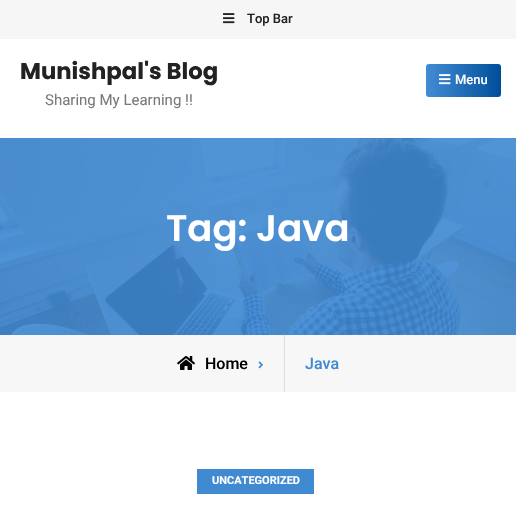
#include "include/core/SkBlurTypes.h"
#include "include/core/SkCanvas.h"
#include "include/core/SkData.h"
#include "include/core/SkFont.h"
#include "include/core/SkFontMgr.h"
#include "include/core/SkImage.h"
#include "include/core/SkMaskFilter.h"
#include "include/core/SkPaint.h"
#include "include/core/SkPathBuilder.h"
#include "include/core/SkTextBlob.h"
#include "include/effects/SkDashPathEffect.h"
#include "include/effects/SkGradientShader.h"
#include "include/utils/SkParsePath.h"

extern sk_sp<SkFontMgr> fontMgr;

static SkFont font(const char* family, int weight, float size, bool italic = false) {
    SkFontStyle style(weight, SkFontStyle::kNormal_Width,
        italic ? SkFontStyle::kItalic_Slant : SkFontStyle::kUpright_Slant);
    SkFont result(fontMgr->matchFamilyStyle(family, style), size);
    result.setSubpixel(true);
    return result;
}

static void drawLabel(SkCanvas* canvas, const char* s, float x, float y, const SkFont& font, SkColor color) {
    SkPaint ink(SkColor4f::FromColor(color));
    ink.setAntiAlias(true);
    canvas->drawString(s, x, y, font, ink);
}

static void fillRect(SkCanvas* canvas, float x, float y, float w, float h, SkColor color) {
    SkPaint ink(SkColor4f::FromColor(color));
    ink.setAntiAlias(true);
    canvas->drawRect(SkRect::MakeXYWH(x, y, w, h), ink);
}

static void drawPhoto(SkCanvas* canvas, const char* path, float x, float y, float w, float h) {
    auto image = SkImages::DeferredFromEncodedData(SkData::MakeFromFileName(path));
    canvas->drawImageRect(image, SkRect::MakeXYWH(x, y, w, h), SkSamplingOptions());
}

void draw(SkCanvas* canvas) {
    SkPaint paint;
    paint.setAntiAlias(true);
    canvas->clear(0xFFFFFFFF);
    fillRect(canvas, 0, 0, 516, 39, 0xFFF7F6F6);
    drawPhoto(canvas, "assets/img1.png", 223, 13, 12, 11);
    SkFont font1 = font("Roboto", 500, 13);
    drawLabel(canvas, "Top Bar", 247, 23, font1, 0xFF222222);
    SkFont font2 = font("Poppins", 700, 22.75f);
    drawLabel(canvas, "Munishpal's Blog", 20, 79, font2, 0xFF222222);
    SkFont font3 = font("Roboto", 400, 15);
    drawLabel(canvas, "Sharing My Learning !!", 45, 105, font3, 0xFF797978);
    {
        const SkColor colors[] = {0xFF428CD4, 0xFF004E9A};
        const float stops[] = {0, 1};
        const SkPoint ends[] = {{426, 81}, {501, 81}};
        paint.setShader(SkGradientShader::MakeLinear(ends, colors, stops, 2, SkTileMode::kClamp));
        paint.setAlpha(255);
    }
    canvas->drawRoundRect(SkRect::MakeXYWH(426, 64, 75, 33), 3, 3, paint);
    drawPhoto(canvas, "assets/img2.png", 439, 74, 12, 11);
    drawLabel(canvas, "Menu", 455, 84, font1, 0xFFFFFFFF);
    drawPhoto(canvas, "assets/img3.png", 0, 138, 516, 197);
    SkFont font4 = font("Poppins", 600, 37);
    drawLabel(canvas, "Tag: Java", 166, 241, font4, 0xFFFFFFFF);
    fillRect(canvas, 0, 335, 516, 57, 0xFFF7F7F7);
    fillRect(canvas, 284, 335, 1, 57, 0xFFDDDDDD);
    drawPhoto(canvas, "assets/img4.png", 177, 356, 18, 14);
    SkFont font5 = font("Roboto", 500, 16);
    drawLabel(canvas, "Home", 205, 369, font5, 0xFF000000);
    drawPhoto(canvas, "assets/img5.png", 258, 361, 5, 8);
    drawLabel(canvas, "Java", 305, 369, font5, 0xFF408AD2);
    fillRect(canvas, 197, 469, 117, 25, 0xFF408AD2);
    SkFont font6 = font("Roboto", 700, 11);
    drawLabel(canvas, "UNCATEGORIZED", 212, 484, font6, 0xFFFFFFFF);
}
